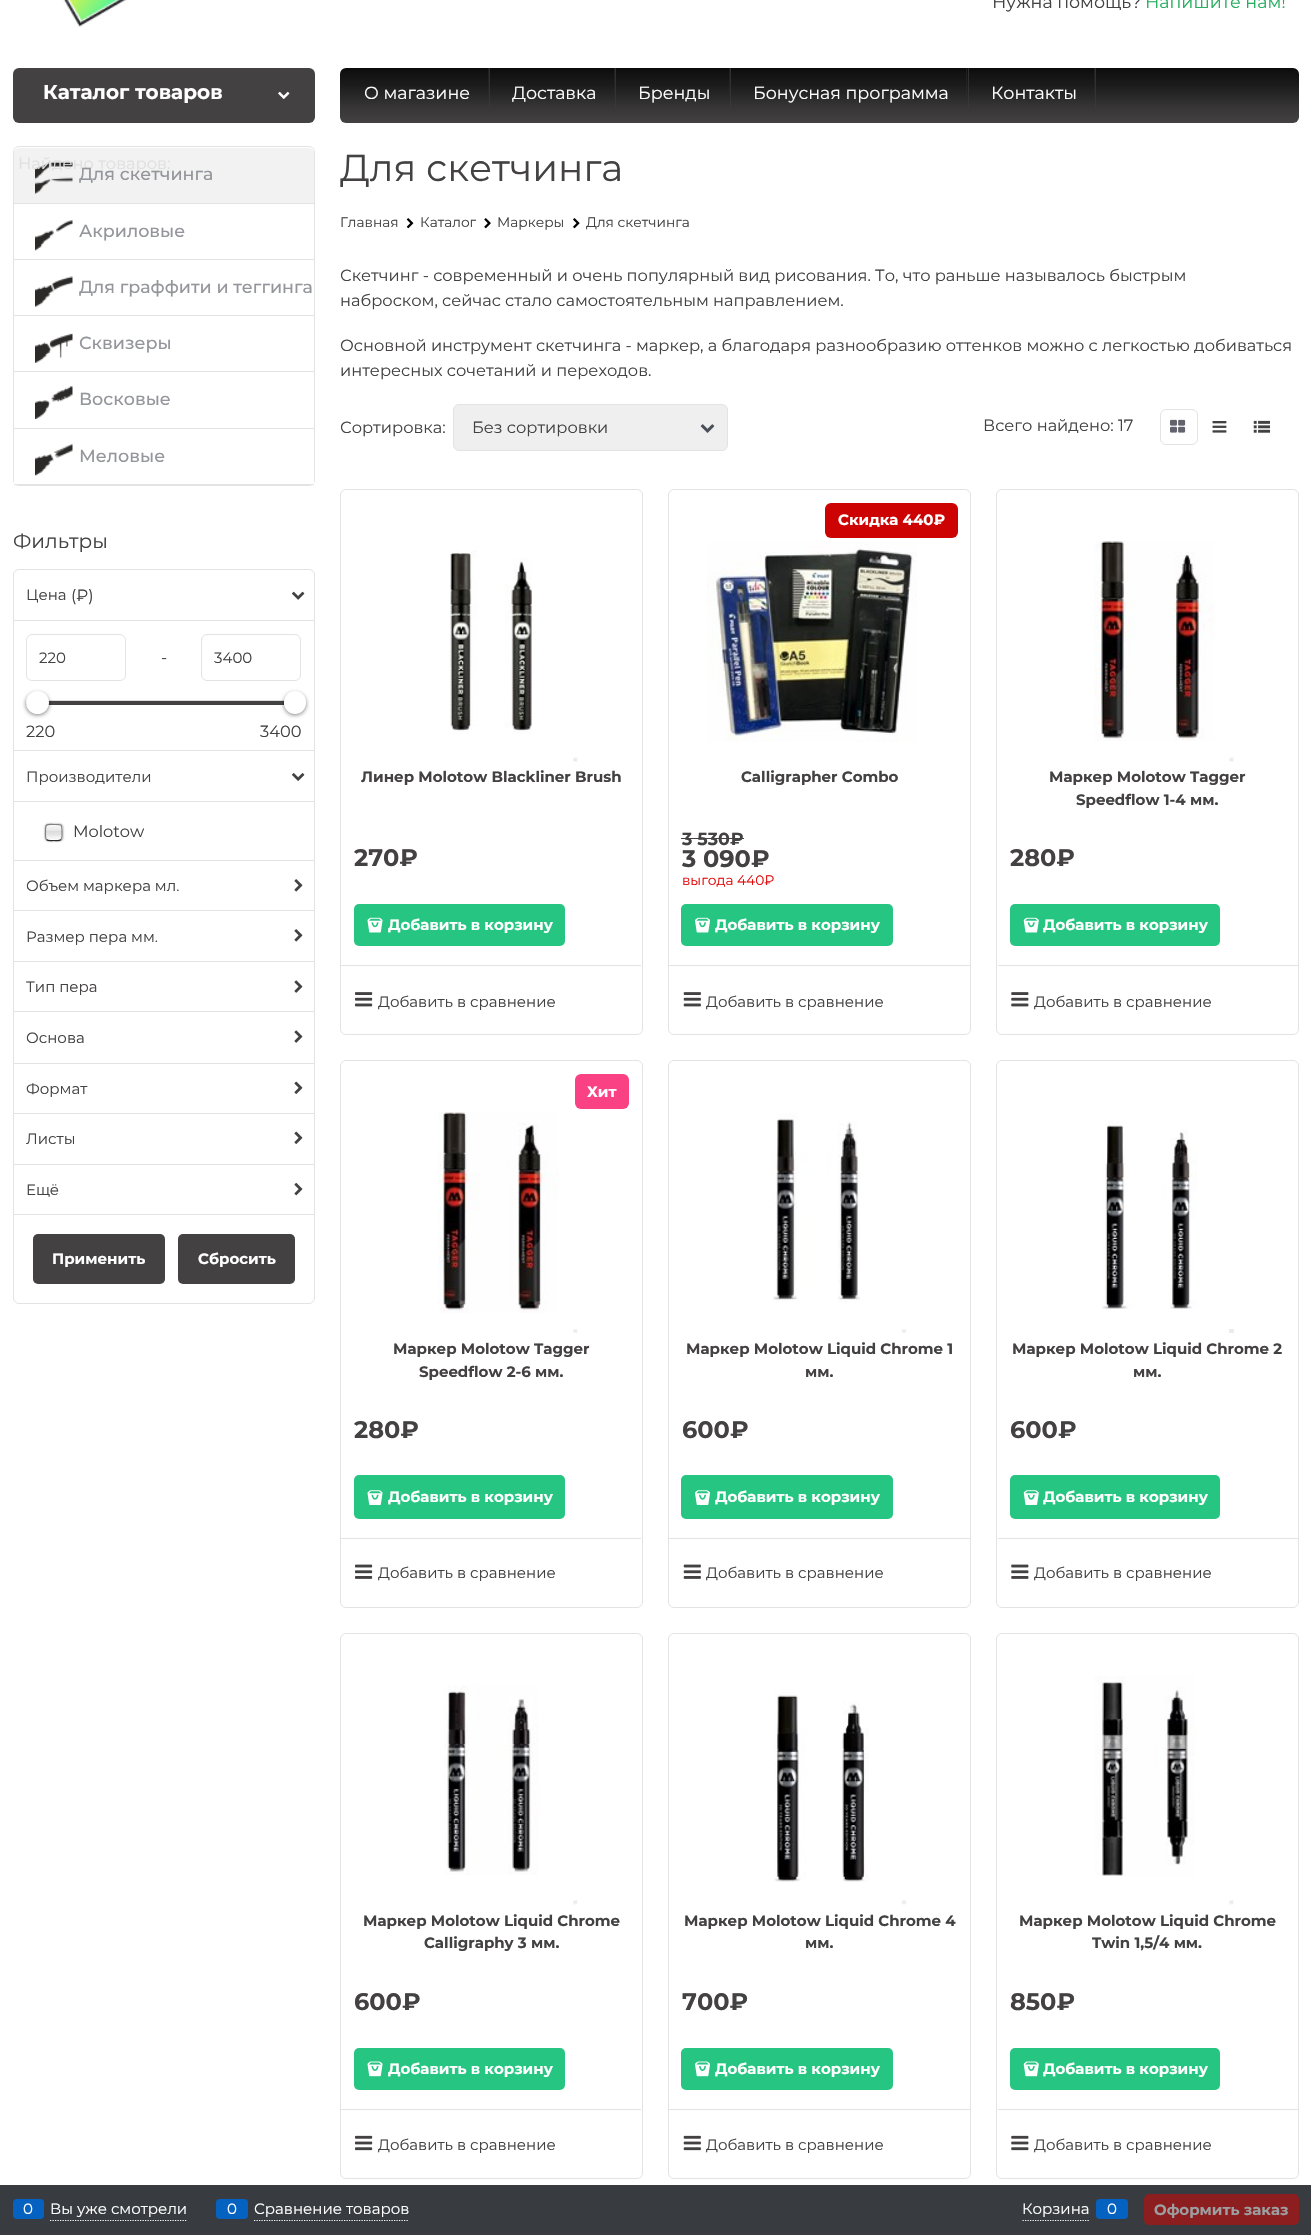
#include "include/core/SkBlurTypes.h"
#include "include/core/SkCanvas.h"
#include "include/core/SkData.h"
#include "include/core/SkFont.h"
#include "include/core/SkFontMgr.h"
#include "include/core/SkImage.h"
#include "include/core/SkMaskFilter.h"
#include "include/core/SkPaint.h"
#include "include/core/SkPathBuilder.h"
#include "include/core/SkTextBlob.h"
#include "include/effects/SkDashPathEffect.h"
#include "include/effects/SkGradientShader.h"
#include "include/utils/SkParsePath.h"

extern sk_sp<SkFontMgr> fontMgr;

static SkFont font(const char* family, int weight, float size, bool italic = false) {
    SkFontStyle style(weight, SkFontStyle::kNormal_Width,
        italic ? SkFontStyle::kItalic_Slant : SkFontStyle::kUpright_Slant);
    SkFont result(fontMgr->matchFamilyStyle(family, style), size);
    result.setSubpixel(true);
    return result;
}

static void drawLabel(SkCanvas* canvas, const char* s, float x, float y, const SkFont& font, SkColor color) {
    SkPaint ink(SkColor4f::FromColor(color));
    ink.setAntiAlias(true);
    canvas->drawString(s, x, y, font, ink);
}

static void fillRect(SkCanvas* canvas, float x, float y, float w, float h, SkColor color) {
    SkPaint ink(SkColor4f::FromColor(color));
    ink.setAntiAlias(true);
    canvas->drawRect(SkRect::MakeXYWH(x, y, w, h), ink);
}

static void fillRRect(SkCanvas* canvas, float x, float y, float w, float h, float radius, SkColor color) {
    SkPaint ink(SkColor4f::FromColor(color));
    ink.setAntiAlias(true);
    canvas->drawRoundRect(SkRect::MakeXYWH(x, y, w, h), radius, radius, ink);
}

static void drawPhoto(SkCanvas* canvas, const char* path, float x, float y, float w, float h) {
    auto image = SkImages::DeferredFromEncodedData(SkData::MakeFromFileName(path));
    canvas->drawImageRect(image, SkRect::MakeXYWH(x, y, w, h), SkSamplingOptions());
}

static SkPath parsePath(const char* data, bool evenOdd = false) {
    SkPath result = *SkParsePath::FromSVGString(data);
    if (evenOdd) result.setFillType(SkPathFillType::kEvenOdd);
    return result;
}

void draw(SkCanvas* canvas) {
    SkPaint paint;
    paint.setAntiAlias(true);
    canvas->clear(0xFFFFFFFF);
    drawPhoto(canvas, "assets/img1.png", 63, 0, 64, 27);
    SkFont font1 = font("Montserrat", 400, 17.5f);
    drawLabel(canvas, "Нужна помощь?", 992, 8, font1, 0xFF434142);
    drawLabel(canvas, "Напишите нам!", 1145, 8, font1, 0xFF27AE60);
    fillRRect(canvas, 13, 68, 302, 55, 6, 0xFF434142);
    SkFont font2 = font("Montserrat", 700, 20);
    drawLabel(canvas, "Каталог товаров", 43, 99, font2, 0xFFFFFFFF);
    drawPhoto(canvas, "assets/img2.png", 278, 91, 12, 8);
    {
        const SkColor colors[] = {0xFF080808, 0xFF101010, 0xFF1B1B1B, 0xFF373536, 0xFF434142};
        const float stops[] = {0, 0.08f, 0.31f, 0.72f, 1};
        const SkPoint ends[] = {{819, 67}, {819, 123}};
        paint.setShader(SkGradientShader::MakeLinear(ends, colors, stops, 5, SkTileMode::kClamp));
        paint.setAlpha(255);
    }
    canvas->drawRoundRect(SkRect::MakeXYWH(340, 68, 959, 55), 6, 6, paint);
    drawLabel(canvas, "О магазине", 364, 99, font1, 0xFFFFFFFF);
    {
        const SkColor colors[] = {0x24FFFFFF, 0x05FFFFFF, 0x00FFFFFF};
        const float stops[] = {0, 0.72f, 1};
        const SkPoint ends[] = {{489, 68}, {489, 123}};
        paint.setShader(SkGradientShader::MakeLinear(ends, colors, stops, 3, SkTileMode::kClamp));
        paint.setAlpha(255);
    }
    canvas->drawRect(SkRect::MakeXYWH(489, 68, 1, 39), paint);
    {
        const SkColor colors[] = {0x63393939, 0x54393939, 0x1F393939, 0x03393939, 0x03FFFFFF, 0x00FFFFFF};
        const float stops[] = {0, 0.17f, 0.61f, 0.96f, 0.98f, 1};
        const SkPoint ends[] = {{488, 68}, {488, 123}};
        paint.setShader(SkGradientShader::MakeLinear(ends, colors, stops, 6, SkTileMode::kClamp));
        paint.setAlpha(255);
    }
    canvas->drawRect(SkRect::MakeXYWH(488, 68, 1, 28), paint);
    drawLabel(canvas, "Доставка", 512, 99, font1, 0xFFFFFFFF);
    {
        const SkColor colors[] = {0x24FFFFFF, 0x05FFFFFF, 0x00FFFFFF};
        const float stops[] = {0, 0.72f, 1};
        const SkPoint ends[] = {{616, 68}, {616, 123}};
        paint.setShader(SkGradientShader::MakeLinear(ends, colors, stops, 3, SkTileMode::kClamp));
        paint.setAlpha(255);
    }
    canvas->drawRect(SkRect::MakeXYWH(615, 68, 1, 39), paint);
    {
        const SkColor colors[] = {0x63393939, 0x54393939, 0x1F393939, 0x03393939, 0x03FFFFFF, 0x00FFFFFF};
        const float stops[] = {0, 0.17f, 0.61f, 0.96f, 0.98f, 1};
        const SkPoint ends[] = {{614, 68}, {614, 123}};
        paint.setShader(SkGradientShader::MakeLinear(ends, colors, stops, 6, SkTileMode::kClamp));
        paint.setAlpha(255);
    }
    canvas->drawRect(SkRect::MakeXYWH(614, 68, 1, 28), paint);
    drawLabel(canvas, "Бренды", 638, 99, font1, 0xFFFFFFFF);
    {
        const SkColor colors[] = {0x24FFFFFF, 0x05FFFFFF, 0x00FFFFFF};
        const float stops[] = {0, 0.72f, 1};
        const SkPoint ends[] = {{731, 68}, {731, 123}};
        paint.setShader(SkGradientShader::MakeLinear(ends, colors, stops, 3, SkTileMode::kClamp));
        paint.setAlpha(255);
    }
    canvas->drawRect(SkRect::MakeXYWH(730, 68, 1, 39), paint);
    {
        const SkColor colors[] = {0x63393939, 0x54393939, 0x1F393939, 0x03393939, 0x03FFFFFF, 0x00FFFFFF};
        const float stops[] = {0, 0.17f, 0.61f, 0.96f, 0.98f, 1};
        const SkPoint ends[] = {{729, 68}, {729, 123}};
        paint.setShader(SkGradientShader::MakeLinear(ends, colors, stops, 6, SkTileMode::kClamp));
        paint.setAlpha(255);
    }
    canvas->drawRect(SkRect::MakeXYWH(729, 68, 1, 28), paint);
    drawLabel(canvas, "Бонусная программа", 753, 99, font1, 0xFFFFFFFF);
    {
        const SkColor colors[] = {0x24FFFFFF, 0x05FFFFFF, 0x00FFFFFF};
        const float stops[] = {0, 0.72f, 1};
        const SkPoint ends[] = {{968, 68}, {968, 123}};
        paint.setShader(SkGradientShader::MakeLinear(ends, colors, stops, 3, SkTileMode::kClamp));
        paint.setAlpha(255);
    }
    canvas->drawRect(SkRect::MakeXYWH(968, 68, 1, 39), paint);
    {
        const SkColor colors[] = {0x63393939, 0x54393939, 0x1F393939, 0x03393939, 0x03FFFFFF, 0x00FFFFFF};
        const float stops[] = {0, 0.17f, 0.61f, 0.96f, 0.98f, 1};
        const SkPoint ends[] = {{967, 68}, {967, 123}};
        paint.setShader(SkGradientShader::MakeLinear(ends, colors, stops, 6, SkTileMode::kClamp));
        paint.setAlpha(255);
    }
    canvas->drawRect(SkRect::MakeXYWH(966, 68, 1, 28), paint);
    drawLabel(canvas, "Контакты", 991, 99, font1, 0xFFFFFFFF);
    {
        const SkColor colors[] = {0x24FFFFFF, 0x05FFFFFF, 0x00FFFFFF};
        const float stops[] = {0, 0.72f, 1};
        const SkPoint ends[] = {{1096, 68}, {1096, 123}};
        paint.setShader(SkGradientShader::MakeLinear(ends, colors, stops, 3, SkTileMode::kClamp));
        paint.setAlpha(255);
    }
    canvas->drawRect(SkRect::MakeXYWH(1095, 68, 1, 39), paint);
    {
        const SkColor colors[] = {0x63393939, 0x54393939, 0x1F393939, 0x03393939, 0x03FFFFFF, 0x00FFFFFF};
        const float stops[] = {0, 0.17f, 0.61f, 0.96f, 0.98f, 1};
        const SkPoint ends[] = {{1094, 68}, {1094, 123}};
        paint.setShader(SkGradientShader::MakeLinear(ends, colors, stops, 6, SkTileMode::kClamp));
        paint.setAlpha(255);
    }
    canvas->drawRect(SkRect::MakeXYWH(1094, 68, 1, 28), paint);
    paint.setStroke(true);
    paint.setStrokeWidth(1);
    paint.setShader(nullptr);
    paint.setColor(0xFFE2E3E4);
    canvas->drawRoundRect(SkRect::MakeXYWH(13.5f, 146.5f, 301, 339), 5.5f, 5.5f, paint);
    paint.setStroke(false);
    paint.setColor(0xFFF2F2F2);
    canvas->drawPath(parsePath("M20 148H308C311.5 148 314 150.5 314 154V203H14V154C14 150.5 16.5 148 20 148Z"), paint);
    drawPhoto(canvas, "assets/img9.png", 35, 161, 38, 33);
    SkFont font3 = font("Montserrat", 400, 16.25f);
    drawLabel(canvas, "Найдено товаров:", 18, 169, font3, 0xFFE0E0E0);
    SkFont font4 = font("Montserrat", 400, 20);
    drawLabel(canvas, "Фильтры", 13, 548, font4, 0xFF434142);
    paint.setStroke(true);
    paint.setColor(0xFFE2E3E4);
    canvas->drawRoundRect(SkRect::MakeXYWH(13.5f, 569.5f, 301, 734), 5.5f, 5.5f, paint);
    SkFont font5 = font("Montserrat", 400, 15);
    drawLabel(canvas, "Цена", 26, 600, font5, 0xFF434142);
    drawLabel(canvas, "(₽)", 71, 601, font3, 0xFF434142);
    drawPhoto(canvas, "assets/img3.png", 292, 591, 13, 9);
    fillRect(canvas, 14, 620, 300, 1, 0xFFE2E3E4);
    canvas->drawRoundRect(SkRect::MakeXYWH(26.5f, 634.5f, 99, 46), 5.5f, 5.5f, paint);
    drawLabel(canvas, "220", 39, 663, font5, 0xFF434142);
    drawLabel(canvas, "-", 161, 663, font3, 0xFF434142);
    canvas->drawRoundRect(SkRect::MakeXYWH(201.5f, 634.5f, 99, 46), 5.5f, 5.5f, paint);
    drawLabel(canvas, "3400", 214, 663, font5, 0xFF434142);
    fillRect(canvas, 26, 700, 258, 1, 0xFFDBDBDB);
    fillRect(canvas, 26, 701, 258, 4, 0xFF434142);
    paint.setStroke(false);
    paint.setColor(0x80000000);
    paint.setMaskFilter(SkMaskFilter::MakeBlur(kNormal_SkBlurStyle, 2));
    canvas->drawRoundRect(SkRect::MakeXYWH(26, 693, 23, 22), 11, 11, paint);
    paint.setMaskFilter(nullptr);
    paint.setColor(0xFFFFFFFF);
    canvas->drawCircle(37.5f, 702.5f, 11.5f, paint);
    paint.setColor(0x80000000);
    paint.setMaskFilter(SkMaskFilter::MakeBlur(kNormal_SkBlurStyle, 2));
    canvas->drawRoundRect(SkRect::MakeXYWH(284, 693, 22, 22), 11, 11, paint);
    paint.setMaskFilter(nullptr);
    fillRRect(canvas, 284, 691, 22, 23, 11, 0xFFFFFFFF);
    drawLabel(canvas, "220", 26, 737, font3, 0xFF434142);
    drawLabel(canvas, "3400", 260, 737, font3, 0xFF434142);
    fillRect(canvas, 14, 750, 300, 1, 0xFFE2E3E4);
    drawLabel(canvas, "Производители", 26, 782, font5, 0xFF434142);
    drawPhoto(canvas, "assets/img4.png", 292, 773, 13, 8);
    fillRect(canvas, 14, 801, 300, 1, 0xFFE2E3E4);
    paint.setColor(0xFF818181);
    paint.setMaskFilter(SkMaskFilter::MakeBlur(kNormal_SkBlurStyle, 1));
    canvas->drawRoundRect(SkRect::MakeXYWH(45, 824, 18, 17), 4, 4, paint);
    paint.setMaskFilter(nullptr);
    canvas->save();
    canvas->clipPath(parsePath("M49 824H59C61 824 63 826 63 828V837C63 839 61 841 59 841H49C47 841 45 839 45 837V828C45 826 47 824 49 824Z"), true);
    {
        const SkColor colors[] = {0xFFFDFDFD, 0xFFF3F3F3, 0xFFEBEBEB, 0xFFDCDCDC, 0xFFE6E6E6, 0xFFF0F0F0, 0xFFF6F6F6, 0xFFFFFFFF};
        const float stops[] = {0, 0.11f, 0.33f, 0.44f, 0.67f, 0.78f, 0.89f, 1};
        const SkPoint ends[] = {{54, 825}, {54, 840}};
        paint.setShader(SkGradientShader::MakeLinear(ends, colors, stops, 8, SkTileMode::kClamp));
        paint.setAlpha(255);
    }
    canvas->drawRect(SkRect::MakeXYWH(45, 825, 18, 15), paint);
    canvas->restore();
    paint.setStroke(true);
    paint.setStrokeWidth(1.2f);
    paint.setShader(nullptr);
    paint.setColor(0xFF2D2D2D);
    canvas->drawPath(parsePath("M61 839.5C59 841.5 56 840.5 54 840.5C51.5 840.5 48.5 841.5 46.5 839.5"), paint);
    paint.setColor(0xFF818181);
    canvas->drawPath(parsePath("M46.5 839.5C45 838 45.5 833 45.5 831C45.5 823.5 46.5 824.5 54 824.5C62 824.5 62 824 62 832.5C62 834.5 62.5 838 61 839.5"), paint);
    drawLabel(canvas, "Molotow", 73, 837, font3, 0xFF434142);
    fillRect(canvas, 14, 860, 300, 1, 0xFFE2E3E4);
    drawLabel(canvas, "Объем маркера мл.", 26, 891, font5, 0xFF434142);
    drawPhoto(canvas, "assets/img5.png", 294, 879, 9, 13);
    fillRect(canvas, 14, 910, 300, 1, 0xFFE2E3E4);
    drawLabel(canvas, "Размер пера мм.", 26, 942, font5, 0xFF434142);
    drawPhoto(canvas, "assets/img5.png", 294, 929, 9, 13);
    fillRect(canvas, 14, 961, 300, 1, 0xFFE2E3E4);
    drawLabel(canvas, "Тип пера", 26, 992, font5, 0xFF434142);
    drawPhoto(canvas, "assets/img6.png", 294, 980, 9, 13);
    fillRect(canvas, 14, 1011, 300, 1, 0xFFE2E3E4);
    drawLabel(canvas, "Основа", 26, 1043, font5, 0xFF434142);
    drawPhoto(canvas, "assets/img6.png", 294, 1030, 9, 13);
    fillRect(canvas, 14, 1063, 300, 1, 0xFFE2E3E4);
    drawLabel(canvas, "Формат", 26, 1094, font5, 0xFF434142);
    drawPhoto(canvas, "assets/img7.png", 294, 1081, 9, 13);
    fillRect(canvas, 14, 1113, 300, 1, 0xFFE2E3E4);
    drawLabel(canvas, "Листы", 26, 1144, font5, 0xFF434142);
    drawPhoto(canvas, "assets/img7.png", 294, 1131, 9, 13);
    fillRect(canvas, 14, 1164, 300, 1, 0xFFE2E3E4);
    drawLabel(canvas, "Ещё", 26, 1195, font5, 0xFF434142);
    drawPhoto(canvas, "assets/img8.png", 294, 1182, 9, 14);
    fillRect(canvas, 14, 1214, 300, 1, 0xFFE2E3E4);
    fillRRect(canvas, 33, 1234, 132, 50, 5, 0xFF434142);
    SkFont font6 = font("Montserrat", 700, 15);
    drawLabel(canvas, "Применить", 52, 1264, font6, 0xFFFFFFFF);
    fillRRect(canvas, 178, 1234, 117, 50, 5, 0xFF434142);
    drawLabel(canvas, "Сбросить", 198, 1264, font6, 0xFFFFFFFF);
    fillRect(canvas, 14, 203, 300, 1, 0xFFE2E3E4);
    SkFont font7 = font("Montserrat", 500, 17.5f);
    drawLabel(canvas, "Для скетчинга", 79, 180, font7, 0xFF94969B);
    fillRect(canvas, 14, 259, 300, 1, 0xFFE2E3E4);
    drawPhoto(canvas, "assets/img10.png", 35, 220, 38, 31);
    drawLabel(canvas, "Акриловые", 79, 237, font7, 0xFF94969B);
    fillRect(canvas, 14, 315, 300, 1, 0xFFE2E3E4);
    drawPhoto(canvas, "assets/img11.png", 35, 276, 38, 31);
    drawLabel(canvas, "Для граффити и теггинга", 79, 293, font7, 0xFF94969B);
    fillRect(canvas, 14, 371, 300, 1, 0xFFE2E3E4);
    drawPhoto(canvas, "assets/img12.png", 35, 333, 38, 30);
    drawLabel(canvas, "Сквизеры", 79, 349, font7, 0xFF94969B);
    fillRect(canvas, 14, 428, 300, 1, 0xFFE2E3E4);
    drawPhoto(canvas, "assets/img13.png", 35, 386, 38, 33);
    drawLabel(canvas, "Восковые", 79, 405, font7, 0xFF94969B);
    fillRect(canvas, 14, 484, 300, 1, 0xFFE2E3E4);
    fillRect(canvas, 14, 481, 300, 3, 0xFFFFFFFF);
    drawPhoto(canvas, "assets/img14.png", 35, 443, 38, 33);
    drawLabel(canvas, "Меловые", 79, 462, font7, 0xFF94969B);
    SkFont font8 = font("Montserrat", 400, 37.5f);
    drawLabel(canvas, "Для скетчинга", 340, 181, font8, 0xFF434142);
    SkFont font9 = font("Montserrat", 400, 13.75f);
    drawLabel(canvas, "Главная", 340, 227, font9, 0xFF434142);
    drawPhoto(canvas, "assets/img15.png", 406, 218, 8, 11);
    drawLabel(canvas, "Каталог", 420, 227, font9, 0xFF434142);
    drawPhoto(canvas, "assets/img16.png", 484, 218, 7, 11);
    drawLabel(canvas, "Маркеры", 497, 227, font9, 0xFF434142);
    drawPhoto(canvas, "assets/img17.png", 573, 218, 7, 11);
    drawLabel(canvas, "Для скетчинга", 586, 227, font9, 0xFF434142);
    drawLabel(canvas, "Скетчинг - современный и очень популярный вид рисования. То, что раньше называлось быстрым", 340, 281, font3, 0xFF434142);
    drawLabel(canvas, "наброском, сейчас стало самостоятельным направлением.", 340, 306, font3, 0xFF434142);
    drawLabel(canvas, "Основной инструмент скетчинга - маркер, а благодаря разнообразию оттенков можно с легкостью добиваться", 340, 351, font3, 0xFF434142);
    drawLabel(canvas, "интересных сочетаний и переходов.", 340, 376, font3, 0xFF434142);
    drawLabel(canvas, "Сортировка:", 340, 433, font3, 0xFF434142);
    paint.setStroke(false);
    paint.setColor(0xFFEFEFEF);
    canvas->drawRoundRect(SkRect::MakeXYWH(453.5f, 404.5f, 274, 46), 5.5f, 5.5f, paint);
    paint.setStroke(true);
    paint.setStrokeWidth(1);
    paint.setColor(0xFFE2E3E4);
    canvas->drawRoundRect(SkRect::MakeXYWH(453.5f, 404.5f, 274, 46), 5.5f, 5.5f, paint);
    drawLabel(canvas, "Без сортировки", 472, 433, font3, 0xFF434142);
    drawPhoto(canvas, "assets/img18.png", 700, 424, 15, 9);
    drawLabel(canvas, "Всего найдено: 17", 983, 431, font3, 0xFF434142);
    canvas->drawRoundRect(SkRect::MakeXYWH(1160.5f, 409.5f, 37, 35), 5.5f, 5.5f, paint);
    drawPhoto(canvas, "assets/img19.png", 1170, 419, 16, 14);
    drawPhoto(canvas, "assets/img20.png", 1212, 421, 15, 12);
    drawPhoto(canvas, "assets/img21.png", 1253, 420, 17, 13);
    canvas->drawRoundRect(SkRect::MakeXYWH(340.5f, 489.5f, 302, 545), 5.5f, 5.5f, paint);
    drawPhoto(canvas, "assets/img22.png", 450, 550, 82, 184);
    drawPhoto(canvas, "assets/img23.png", 573, 757, 5, 5);
    drawLabel(canvas, "Линер Molotow Blackliner Brush", 361, 782, font6, 0xFF434142);
    SkFont font10 = font("Montserrat", 700, 24);
    drawLabel(canvas, "270₽", 354, 866, font10, 0xFF434142);
    fillRRect(canvas, 354, 904, 211, 42, 5, 0xFF26C582);
    drawPhoto(canvas, "assets/img24.png", 367, 917, 16, 16);
    drawLabel(canvas, "Добавить в корзину", 388, 930, font6, 0xFFFFFFFF);
    fillRect(canvas, 341, 965, 300, 1, 0xFFE2E3E4);
    drawPhoto(canvas, "assets/img25.png", 355, 992, 18, 15);
    drawLabel(canvas, "Добавить в сравнение", 378, 1007, font5, 0xFF434142);
    canvas->drawRoundRect(SkRect::MakeXYWH(668.5f, 489.5f, 302, 545), 5.5f, 5.5f, paint);
    fillRRect(canvas, 825, 503, 133, 35, 6, 0xFFCD0303);
    drawLabel(canvas, "Скидка 440₽", 838, 525, font6, 0xFFFFFFFF);
    drawPhoto(canvas, "assets/img26.png", 707, 542, 210, 200);
    drawLabel(canvas, "Calligrapher Combo", 741, 782, font6, 0xFF434142);
    SkFont font11 = font("Montserrat", 700, 17.5f);
    drawLabel(canvas, "3 530₽", 682, 845, font11, 0xFF434142);
    fillRect(canvas, 681, 838, 63, 1, 0xFF434142);
    drawLabel(canvas, "3 090₽", 682, 867, font10, 0xFF434142);
    drawLabel(canvas, "выгода 440₽", 682, 885, font9, 0xFFE20A0A);
    fillRRect(canvas, 681, 904, 212, 42, 5, 0xFF26C582);
    drawPhoto(canvas, "assets/img27.png", 695, 917, 15, 16);
    drawLabel(canvas, "Добавить в корзину", 715, 930, font6, 0xFFFFFFFF);
    fillRect(canvas, 669, 965, 301, 1, 0xFFE2E3E4);
    drawPhoto(canvas, "assets/img28.png", 683, 992, 18, 15);
    drawLabel(canvas, "Добавить в сравнение", 706, 1007, font5, 0xFF434142);
    canvas->drawRoundRect(SkRect::MakeXYWH(996.5f, 489.5f, 302, 545), 5.5f, 5.5f, paint);
    drawPhoto(canvas, "assets/img29.png", 1094, 541, 121, 200);
    drawPhoto(canvas, "assets/img30.png", 1229, 757, 5, 5);
    drawLabel(canvas, "Маркер Molotow Tagger", 1049, 782, font6, 0xFF434142);
    drawLabel(canvas, "Speedflow 1-4 мм.", 1076, 805, font6, 0xFF434142);
    drawLabel(canvas, "280₽", 1010, 866, font10, 0xFF434142);
    fillRRect(canvas, 1010, 904, 210, 42, 5, 0xFF26C582);
    drawPhoto(canvas, "assets/img31.png", 1023, 917, 16, 16);
    drawLabel(canvas, "Добавить в корзину", 1043, 930, font6, 0xFFFFFFFF);
    fillRect(canvas, 998, 965, 300, 1, 0xFFE2E3E4);
    drawPhoto(canvas, "assets/img32.png", 1011, 992, 18, 15);
    drawLabel(canvas, "Добавить в сравнение", 1034, 1007, font5, 0xFF434142);
    canvas->drawRoundRect(SkRect::MakeXYWH(340.5f, 1060.5f, 302, 547), 5.5f, 5.5f, paint);
    fillRRect(canvas, 575, 1074, 54, 35, 6, 0xFFF94183);
    drawLabel(canvas, "Хит", 587, 1097, font6, 0xFFFFFFFF);
    drawPhoto(canvas, "assets/img33.png", 438, 1112, 121, 201);
    drawPhoto(canvas, "assets/img34.png", 573, 1329, 5, 4);
    drawLabel(canvas, "Маркер Molotow Tagger", 393, 1354, font6, 0xFF434142);
    drawLabel(canvas, "Speedflow 2-6 мм.", 419, 1377, font6, 0xFF434142);
    drawLabel(canvas, "280₽", 354, 1438, font10, 0xFF434142);
    fillRRect(canvas, 354, 1475, 211, 44, 5, 0xFF26C582);
    drawPhoto(canvas, "assets/img35.png", 367, 1490, 16, 15);
    drawLabel(canvas, "Добавить в корзину", 388, 1502, font6, 0xFFFFFFFF);
    fillRect(canvas, 341, 1538, 300, 1, 0xFFE2E3E4);
    drawPhoto(canvas, "assets/img36.png", 355, 1564, 18, 15);
    drawLabel(canvas, "Добавить в сравнение", 378, 1578, font5, 0xFF434142);
    canvas->drawRoundRect(SkRect::MakeXYWH(668.5f, 1060.5f, 302, 547), 5.5f, 5.5f, paint);
    drawPhoto(canvas, "assets/img37.png", 772, 1113, 89, 190);
    drawPhoto(canvas, "assets/img38.png", 901, 1329, 6, 4);
    drawLabel(canvas, "Маркер Molotow Liquid Chrome 1", 686, 1354, font6, 0xFF434142);
    drawLabel(canvas, "мм.", 805, 1377, font6, 0xFF434142);
    drawLabel(canvas, "600₽", 682, 1438, font10, 0xFF434142);
    fillRRect(canvas, 681, 1475, 212, 44, 5, 0xFF26C582);
    drawPhoto(canvas, "assets/img39.png", 695, 1490, 15, 15);
    drawLabel(canvas, "Добавить в корзину", 715, 1502, font6, 0xFFFFFFFF);
    fillRect(canvas, 669, 1538, 301, 1, 0xFFE2E3E4);
    drawPhoto(canvas, "assets/img40.png", 683, 1564, 18, 15);
    drawLabel(canvas, "Добавить в сравнение", 706, 1578, font5, 0xFF434142);
    canvas->drawRoundRect(SkRect::MakeXYWH(996.5f, 1060.5f, 302, 547), 5.5f, 5.5f, paint);
    drawPhoto(canvas, "assets/img41.png", 1102, 1121, 95, 188);
    fillRect(canvas, 1229, 1329, 5, 4, 0xFFEBECEC);
    drawLabel(canvas, "Маркер Molotow Liquid Chrome 2", 1012, 1354, font6, 0xFF434142);
    drawLabel(canvas, "мм.", 1133, 1377, font6, 0xFF434142);
    drawLabel(canvas, "600₽", 1010, 1438, font10, 0xFF434142);
    fillRRect(canvas, 1010, 1475, 210, 44, 5, 0xFF26C582);
    drawPhoto(canvas, "assets/img42.png", 1023, 1490, 16, 15);
    drawLabel(canvas, "Добавить в корзину", 1043, 1502, font6, 0xFFFFFFFF);
    fillRect(canvas, 998, 1538, 300, 1, 0xFFE2E3E4);
    drawPhoto(canvas, "assets/img43.png", 1011, 1564, 18, 15);
    drawLabel(canvas, "Добавить в сравнение", 1034, 1578, font5, 0xFF434142);
    canvas->drawRoundRect(SkRect::MakeXYWH(340.5f, 1633.5f, 302, 545), 5.5f, 5.5f, paint);
    drawPhoto(canvas, "assets/img44.png", 444, 1685, 95, 190);
    drawPhoto(canvas, "assets/img45.png", 573, 1900, 5, 5);
    drawLabel(canvas, "Маркер Molotow Liquid Chrome", 363, 1926, font6, 0xFF434142);
    drawLabel(canvas, "Calligraphy 3 мм.", 424, 1948, font6, 0xFF434142);
    drawLabel(canvas, "600₽", 354, 2010, font10, 0xFF434142);
    fillRRect(canvas, 354, 2048, 211, 42, 5, 0xFF26C582);
    drawPhoto(canvas, "assets/img46.png", 367, 2061, 16, 16);
    drawLabel(canvas, "Добавить в корзину", 388, 2074, font6, 0xFFFFFFFF);
    fillRect(canvas, 341, 2109, 300, 1, 0xFFE2E3E4);
    drawPhoto(canvas, "assets/img47.png", 355, 2135, 18, 16);
    drawLabel(canvas, "Добавить в сравнение", 378, 2150, font5, 0xFF434142);
    canvas->drawRoundRect(SkRect::MakeXYWH(668.5f, 1633.5f, 302, 545), 5.5f, 5.5f, paint);
    drawPhoto(canvas, "assets/img48.png", 774, 1692, 95, 190);
    drawPhoto(canvas, "assets/img49.png", 901, 1900, 6, 5);
    drawLabel(canvas, "Маркер Molotow Liquid Chrome 4", 684, 1926, font6, 0xFF434142);
    drawLabel(canvas, "мм.", 805, 1948, font6, 0xFF434142);
    drawLabel(canvas, "700₽", 682, 2010, font10, 0xFF434142);
    fillRRect(canvas, 681, 2048, 212, 42, 5, 0xFF26C582);
    drawPhoto(canvas, "assets/img50.png", 695, 2061, 15, 16);
    drawLabel(canvas, "Добавить в корзину", 715, 2074, font6, 0xFFFFFFFF);
    fillRect(canvas, 669, 2109, 301, 1, 0xFFE2E3E4);
    drawPhoto(canvas, "assets/img51.png", 683, 2135, 18, 16);
    drawLabel(canvas, "Добавить в сравнение", 706, 2150, font5, 0xFF434142);
    canvas->drawRoundRect(SkRect::MakeXYWH(996.5f, 1633.5f, 302, 545), 5.5f, 5.5f, paint);
    drawPhoto(canvas, "assets/img52.png", 1095, 1676, 100, 200);
    drawPhoto(canvas, "assets/img53.png", 1229, 1900, 5, 5);
    drawLabel(canvas, "Маркер Molotow Liquid Chrome", 1019, 1926, font6, 0xFF434142);
    drawLabel(canvas, "Twin 1,5/4 мм.", 1092, 1948, font6, 0xFF434142);
    drawLabel(canvas, "850₽", 1010, 2010, font10, 0xFF434142);
    fillRRect(canvas, 1010, 2048, 210, 42, 5, 0xFF26C582);
    drawPhoto(canvas, "assets/img54.png", 1023, 2061, 16, 16);
    drawLabel(canvas, "Добавить в корзину", 1043, 2074, font6, 0xFFFFFFFF);
    fillRect(canvas, 998, 2109, 300, 1, 0xFFE2E3E4);
    drawPhoto(canvas, "assets/img55.png", 1011, 2135, 18, 16);
    drawLabel(canvas, "Добавить в сравнение", 1034, 2150, font5, 0xFF434142);
    fillRect(canvas, 0, 2185, 1311, 50, 0xFF383C40);
    paint.setStrokeWidth(1.2f);
    paint.setColor(0xFFFFFFFF);
    paint.setPathEffect(SkDashPathEffect::Make({{1.25f, 1.25f}}, 0));
    canvas->drawPath(parsePath("M50 2220.5H187.5"), paint);
    paint.setPathEffect(nullptr);
    fillRRect(canvas, 13, 2199, 31, 20, 4, 0xFF0662C1);
    drawLabel(canvas, "0", 23, 2214, font5, 0xFFFFFFFF);
    drawLabel(canvas, "Вы уже смотрели", 50, 2214, font5, 0xFFFFFFFF);
    paint.setPathEffect(SkDashPathEffect::Make({{1.25f, 1.25f}}, 0));
    canvas->drawPath(parsePath("M254 2220.5H409"), paint);
    paint.setPathEffect(nullptr);
    fillRRect(canvas, 216, 2199, 32, 20, 4, 0xFF0662C1);
    drawLabel(canvas, "0", 227, 2214, font5, 0xFFFFFFFF);
    drawLabel(canvas, "Сравнение товаров", 254, 2214, font5, 0xFFFFFFFF);
    paint.setPathEffect(SkDashPathEffect::Make({{1.25f, 1.25f}}, 0));
    canvas->drawPath(parsePath("M1022.5 2220.5H1090"), paint);
    paint.setPathEffect(nullptr);
    drawLabel(canvas, "Корзина", 1022, 2214, font5, 0xFFFFFFFF);
    fillRRect(canvas, 1096, 2199, 32, 20, 4, 0xFF0662C1);
    drawLabel(canvas, "0", 1107, 2214, font5, 0xFFFFFFFF);
    fillRRect(canvas, 1144, 2194, 155, 31, 5, 0xFF8D1E20);
    drawLabel(canvas, "Оформить заказ", 1154, 2215, font6, 0xFF9C9EA0);
}
